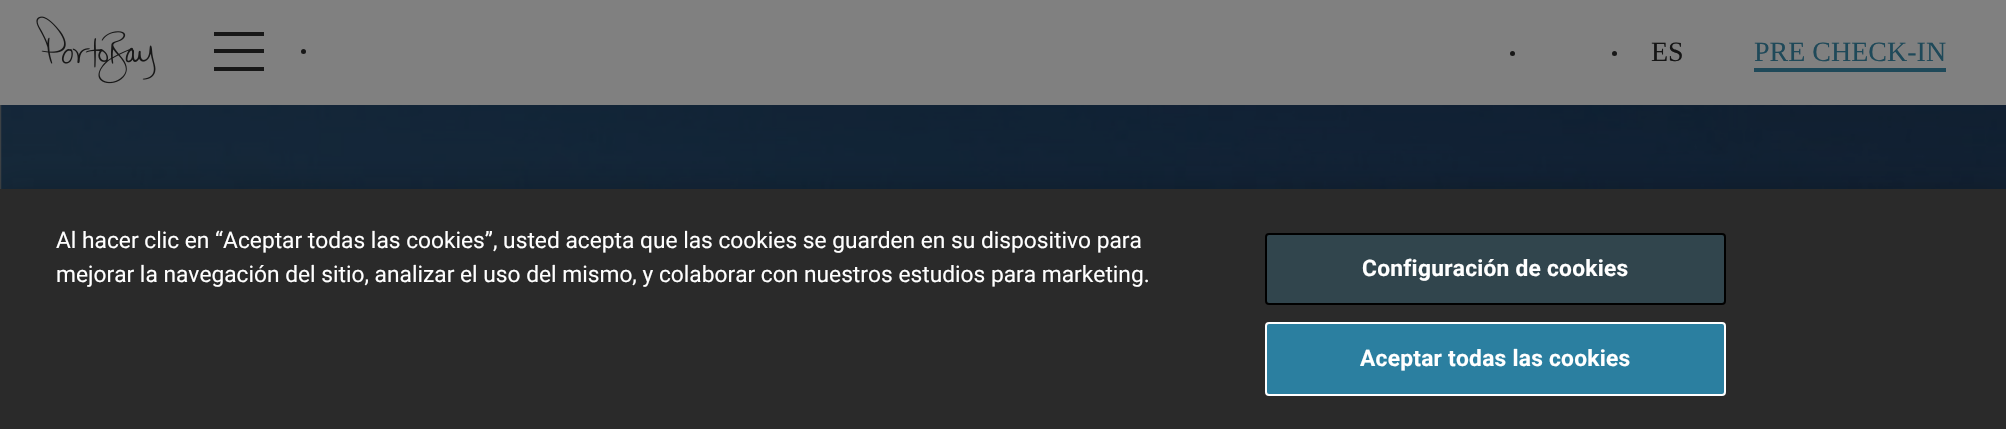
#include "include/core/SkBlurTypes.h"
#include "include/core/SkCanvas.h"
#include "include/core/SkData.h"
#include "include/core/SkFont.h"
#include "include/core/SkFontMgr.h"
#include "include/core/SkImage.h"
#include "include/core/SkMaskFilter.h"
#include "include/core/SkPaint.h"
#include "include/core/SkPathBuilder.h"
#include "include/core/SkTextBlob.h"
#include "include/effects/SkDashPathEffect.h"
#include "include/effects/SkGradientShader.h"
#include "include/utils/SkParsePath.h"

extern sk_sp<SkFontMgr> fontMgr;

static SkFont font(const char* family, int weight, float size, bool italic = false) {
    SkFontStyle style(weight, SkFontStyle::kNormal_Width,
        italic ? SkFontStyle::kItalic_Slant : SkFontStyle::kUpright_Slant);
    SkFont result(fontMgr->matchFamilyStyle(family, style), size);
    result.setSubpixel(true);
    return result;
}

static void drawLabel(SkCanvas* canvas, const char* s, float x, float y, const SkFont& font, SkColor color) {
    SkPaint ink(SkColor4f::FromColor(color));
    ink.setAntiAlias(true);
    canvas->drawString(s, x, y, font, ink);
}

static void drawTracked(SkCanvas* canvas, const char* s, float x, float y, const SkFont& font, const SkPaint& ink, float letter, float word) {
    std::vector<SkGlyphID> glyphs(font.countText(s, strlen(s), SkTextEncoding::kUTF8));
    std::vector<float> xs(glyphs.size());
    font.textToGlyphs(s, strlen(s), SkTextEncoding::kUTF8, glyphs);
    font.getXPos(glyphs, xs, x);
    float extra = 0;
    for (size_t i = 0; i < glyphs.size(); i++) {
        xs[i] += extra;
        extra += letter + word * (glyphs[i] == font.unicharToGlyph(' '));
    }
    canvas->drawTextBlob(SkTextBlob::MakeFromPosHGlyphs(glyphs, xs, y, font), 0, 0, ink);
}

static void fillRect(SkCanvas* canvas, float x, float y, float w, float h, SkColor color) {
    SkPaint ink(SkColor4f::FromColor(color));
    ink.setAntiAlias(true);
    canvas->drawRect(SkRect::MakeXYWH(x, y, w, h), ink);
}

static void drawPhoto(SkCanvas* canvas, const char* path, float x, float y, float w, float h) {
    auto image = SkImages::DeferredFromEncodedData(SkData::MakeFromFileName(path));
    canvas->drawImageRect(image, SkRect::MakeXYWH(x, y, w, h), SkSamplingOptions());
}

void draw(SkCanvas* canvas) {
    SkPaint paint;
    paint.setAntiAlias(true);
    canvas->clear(0xFF808080);
    drawPhoto(canvas, "assets/img1.png", 36, 16, 120, 68);
    fillRect(canvas, 214, 32, 50, 4, 0xFF171717);
    fillRect(canvas, 214, 49, 50, 4, 0xFF171717);
    fillRect(canvas, 214, 67, 50, 4, 0xFF171717);
    paint.setColor(0xFF171717);
    canvas->drawCircle(303.5f, 51.5f, 2.5f, paint);
    canvas->drawCircle(1512.5f, 53.5f, 2.5f, paint);
    canvas->drawCircle(1614.5f, 53.5f, 2.5f, paint);
    SkFont font1 = font("Liberation Serif", 400, 28);
    drawLabel(canvas, "ES", 1651, 61, font1, 0xFF151515);
    drawLabel(canvas, "PRE CHECK-IN", 1754, 61, font1, 0xFF1F4959);
    fillRect(canvas, 1754, 68, 192, 4, 0xFF1F4959);
    fillRect(canvas, 0, 105, 2, 84, 0xFF4B4B4A);
    drawPhoto(canvas, "assets/img2.png", 0, 105, 2006, 84);
    paint.setColor(0x33000000);
    paint.setMaskFilter(SkMaskFilter::MakeBlur(kNormal_SkBlurStyle, 16));
    canvas->drawRect(SkRect::MakeXYWH(0, 189, 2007, 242), paint);
    paint.setMaskFilter(nullptr);
    fillRect(canvas, 0, 189, 2006, 240, 0xFF2A2A2A);
    SkFont font2 = font("Roboto", 400, 22.75f);
    drawLabel(canvas, "Al hacer clic en “Aceptar todas las cookies”, usted acepta que las cookies se guarden en su dispositivo para", 56, 248, font2, 0xFFFFFFFF);
    drawLabel(canvas, "mejorar la navegación del sitio, analizar el uso del mismo, y colaborar con nuestros estudios para marketing.", 56, 282, font2, 0xFFFFFFFF);
    paint.setColor(0xFF31454D);
    canvas->drawRoundRect(SkRect::MakeXYWH(1266, 234, 459, 70), 3, 3, paint);
    paint.setStroke(true);
    paint.setStrokeWidth(2);
    paint.setColor(0xFF000000);
    canvas->drawRoundRect(SkRect::MakeXYWH(1266, 234, 459, 70), 3, 3, paint);
    SkFont font3 = font("Roboto", 700, 22.75f);
    paint.setStroke(false);
    paint.setColor(0xFFFFFFFF);
    drawTracked(canvas, "Configuración de cookies", 1362, 276, font3, paint, 0.25f, 0);
    paint.setColor(0xFF2B7FA0);
    canvas->drawRoundRect(SkRect::MakeXYWH(1266, 323, 459, 72), 3, 3, paint);
    paint.setStroke(true);
    paint.setColor(0xFFFFFFFF);
    canvas->drawRoundRect(SkRect::MakeXYWH(1266, 323, 459, 72), 3, 3, paint);
    paint.setStroke(false);
    drawTracked(canvas, "Aceptar todas las cookies", 1360, 366, font3, paint, 0.25f, 0);
}
